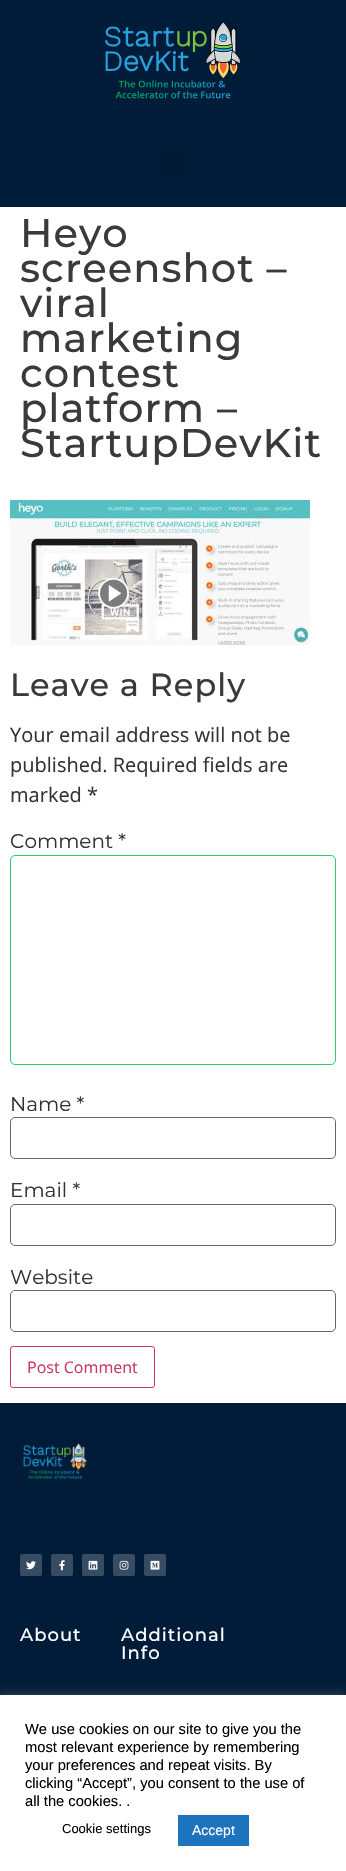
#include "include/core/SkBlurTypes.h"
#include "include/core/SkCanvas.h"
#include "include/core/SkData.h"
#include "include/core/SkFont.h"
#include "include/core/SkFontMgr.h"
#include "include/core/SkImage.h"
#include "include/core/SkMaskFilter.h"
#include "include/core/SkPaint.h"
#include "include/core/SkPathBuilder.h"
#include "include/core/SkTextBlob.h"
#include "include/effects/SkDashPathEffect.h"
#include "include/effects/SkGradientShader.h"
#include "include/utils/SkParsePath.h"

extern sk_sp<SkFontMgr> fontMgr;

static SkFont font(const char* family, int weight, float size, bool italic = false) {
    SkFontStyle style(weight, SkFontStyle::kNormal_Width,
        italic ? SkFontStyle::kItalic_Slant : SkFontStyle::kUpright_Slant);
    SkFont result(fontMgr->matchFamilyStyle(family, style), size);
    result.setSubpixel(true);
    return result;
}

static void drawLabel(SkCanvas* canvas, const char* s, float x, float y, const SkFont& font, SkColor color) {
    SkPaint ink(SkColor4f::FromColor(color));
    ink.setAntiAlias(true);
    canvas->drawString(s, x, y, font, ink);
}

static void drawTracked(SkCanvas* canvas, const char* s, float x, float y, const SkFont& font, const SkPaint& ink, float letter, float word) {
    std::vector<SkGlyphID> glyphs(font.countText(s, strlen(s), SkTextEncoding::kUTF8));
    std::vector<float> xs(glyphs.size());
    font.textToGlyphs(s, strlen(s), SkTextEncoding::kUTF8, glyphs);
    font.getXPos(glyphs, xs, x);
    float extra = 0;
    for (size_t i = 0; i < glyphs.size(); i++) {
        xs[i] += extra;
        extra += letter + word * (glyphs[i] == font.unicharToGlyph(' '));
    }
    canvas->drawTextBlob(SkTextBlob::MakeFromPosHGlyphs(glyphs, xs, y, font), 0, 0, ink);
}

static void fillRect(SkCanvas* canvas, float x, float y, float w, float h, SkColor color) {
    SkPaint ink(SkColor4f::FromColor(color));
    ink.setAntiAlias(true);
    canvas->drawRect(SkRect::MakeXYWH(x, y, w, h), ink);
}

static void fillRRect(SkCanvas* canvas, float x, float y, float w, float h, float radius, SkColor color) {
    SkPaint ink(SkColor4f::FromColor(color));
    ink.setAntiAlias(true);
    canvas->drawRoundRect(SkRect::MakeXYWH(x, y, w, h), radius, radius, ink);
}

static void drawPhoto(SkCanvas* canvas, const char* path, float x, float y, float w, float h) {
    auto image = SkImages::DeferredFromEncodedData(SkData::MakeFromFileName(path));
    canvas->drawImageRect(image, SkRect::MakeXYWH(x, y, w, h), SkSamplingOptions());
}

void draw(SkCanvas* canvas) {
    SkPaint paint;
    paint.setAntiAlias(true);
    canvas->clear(0xFFFFFFFF);
    fillRect(canvas, 0, 0, 346, 207, 0xFF001C38);
    drawPhoto(canvas, "assets/img1.png", 104, 21, 138, 78);
    fillRRect(canvas, 161, 150, 24, 27, 3, 0xFF001B35);
    SkFont font1 = font("Montserrat", 500, 40);
    paint.setColor(0xFF3A3A3A);
    drawTracked(canvas, "Heyo", 20, 247, font1, paint, 1, 0);
    drawTracked(canvas, "screenshot –", 20, 282, font1, paint, 1, 0);
    drawTracked(canvas, "viral", 20, 317, font1, paint, 1, 0);
    drawTracked(canvas, "marketing", 20, 352, font1, paint, 1, 0);
    drawTracked(canvas, "contest", 20, 387, font1, paint, 1, 0);
    drawTracked(canvas, "platform –", 20, 422, font1, paint, 1, 0);
    drawTracked(canvas, "StartupDevKit", 20, 457, font1, paint, 1, 0);
    drawPhoto(canvas, "assets/img2.png", 10, 500, 300, 145);
    SkFont font2 = font("Montserrat", 500, 32);
    drawTracked(canvas, "Leave a Reply", 10, 696, font2, paint, 1, 0);
    SkFont font3 = font("Open Sans", 400, 20);
    drawLabel(canvas, "Your email address will not be", 10, 742, font3, 0xFF333333);
    drawLabel(canvas, "published. Required fields are", 10, 772, font3, 0xFF333333);
    drawLabel(canvas, "marked *", 10, 802, font3, 0xFF333333);
    SkFont font4 = font("Montserrat", 400, 20);
    drawLabel(canvas, "Comment *", 10, 848, font4, 0xFF333333);
    paint.setStroke(true);
    paint.setStrokeWidth(1);
    paint.setColor(0xFF2ECC71);
    canvas->drawRoundRect(SkRect::MakeXYWH(10.5f, 855.5f, 325, 209), 4.5f, 4.5f, paint);
    drawLabel(canvas, "Name *", 10, 1111, font4, 0xFF333333);
    paint.setColor(0xFF666666);
    canvas->drawRoundRect(SkRect::MakeXYWH(10.5f, 1117.5f, 325, 41), 4.5f, 4.5f, paint);
    drawLabel(canvas, "Email *", 10, 1197, font4, 0xFF333333);
    canvas->drawRoundRect(SkRect::MakeXYWH(10.5f, 1204.5f, 325, 41), 4.5f, 4.5f, paint);
    drawLabel(canvas, "Website", 10, 1284, font4, 0xFF333333);
    canvas->drawRoundRect(SkRect::MakeXYWH(10.5f, 1290.5f, 325, 41), 4.5f, 4.5f, paint);
    paint.setColor(0xFFCC3366);
    canvas->drawRoundRect(SkRect::MakeXYWH(10.5f, 1346.5f, 144, 41), 2.5f, 2.5f, paint);
    SkFont font5 = font("Open Sans", 400, 16);
    drawLabel(canvas, "Post Comment", 27, 1373, font5, 0xFFCC3366);
    fillRect(canvas, 0, 1403, 346, 292, 0xFF001C38);
    drawPhoto(canvas, "assets/img3.png", 22, 1443, 65, 37);
    fillRRect(canvas, 20, 1554, 22, 22, 2, 0xFF364C62);
    drawPhoto(canvas, "assets/img4.png", 26, 1561, 10, 9);
    fillRRect(canvas, 51, 1554, 22, 22, 2, 0xFF364C62);
    drawPhoto(canvas, "assets/img5.png", 59, 1560, 6, 11);
    fillRRect(canvas, 82, 1554, 22, 22, 2, 0xFF364C62);
    drawPhoto(canvas, "assets/img6.png", 88, 1560, 10, 10);
    fillRRect(canvas, 113, 1554, 22, 22, 2, 0xFF364C62);
    drawPhoto(canvas, "assets/img7.png", 119, 1560, 10, 10);
    fillRRect(canvas, 144, 1554, 22, 22, 2, 0xFF364C62);
    drawPhoto(canvas, "assets/img8.png", 150, 1560, 10, 10);
    SkFont font6 = font("Montserrat", 500, 18);
    paint.setStroke(false);
    paint.setColor(0xFFFFFFFF);
    drawTracked(canvas, "About", 20, 1641, font6, paint, 1, 0);
    drawTracked(canvas, "Additional", 121, 1641, font6, paint, 1, 0);
    drawTracked(canvas, "Info", 121, 1659, font6, paint, 1, 0);
    paint.setColor(0x4DACABAB);
    paint.setMaskFilter(SkMaskFilter::MakeBlur(kNormal_SkBlurStyle, 5));
    canvas->drawRect(SkRect::MakeXYWH(0, 1694, 346, 176), paint);
    paint.setMaskFilter(nullptr);
    fillRect(canvas, 0, 1695, 346, 176, 0xFFFFFFFF);
    SkFont font7 = font("Liberation Sans", 400, 14.7f);
    drawLabel(canvas, "We use cookies on our site to give you the", 25, 1734, font7, 0xFF000000);
    drawLabel(canvas, "most relevant experience by remembering", 25, 1752, font7, 0xFF000000);
    drawLabel(canvas, "your preferences and repeat visits. By", 25, 1770, font7, 0xFF000000);
    drawLabel(canvas, "clicking “Accept”, you consent to the use of", 25, 1788, font7, 0xFF000000);
    drawLabel(canvas, "all the cookies. .", 25, 1806, font7, 0xFF000000);
    SkFont font8 = font("Liberation Sans", 400, 13);
    drawLabel(canvas, "Cookie settings", 62, 1833, font8, 0xFF000000);
    fillRect(canvas, 178, 1815, 71, 31, 0xFF1E73BE);
    SkFont font9 = font("Liberation Sans", 400, 14);
    drawLabel(canvas, "Accept", 192, 1835, font9, 0xFFFFFFFF);
}
